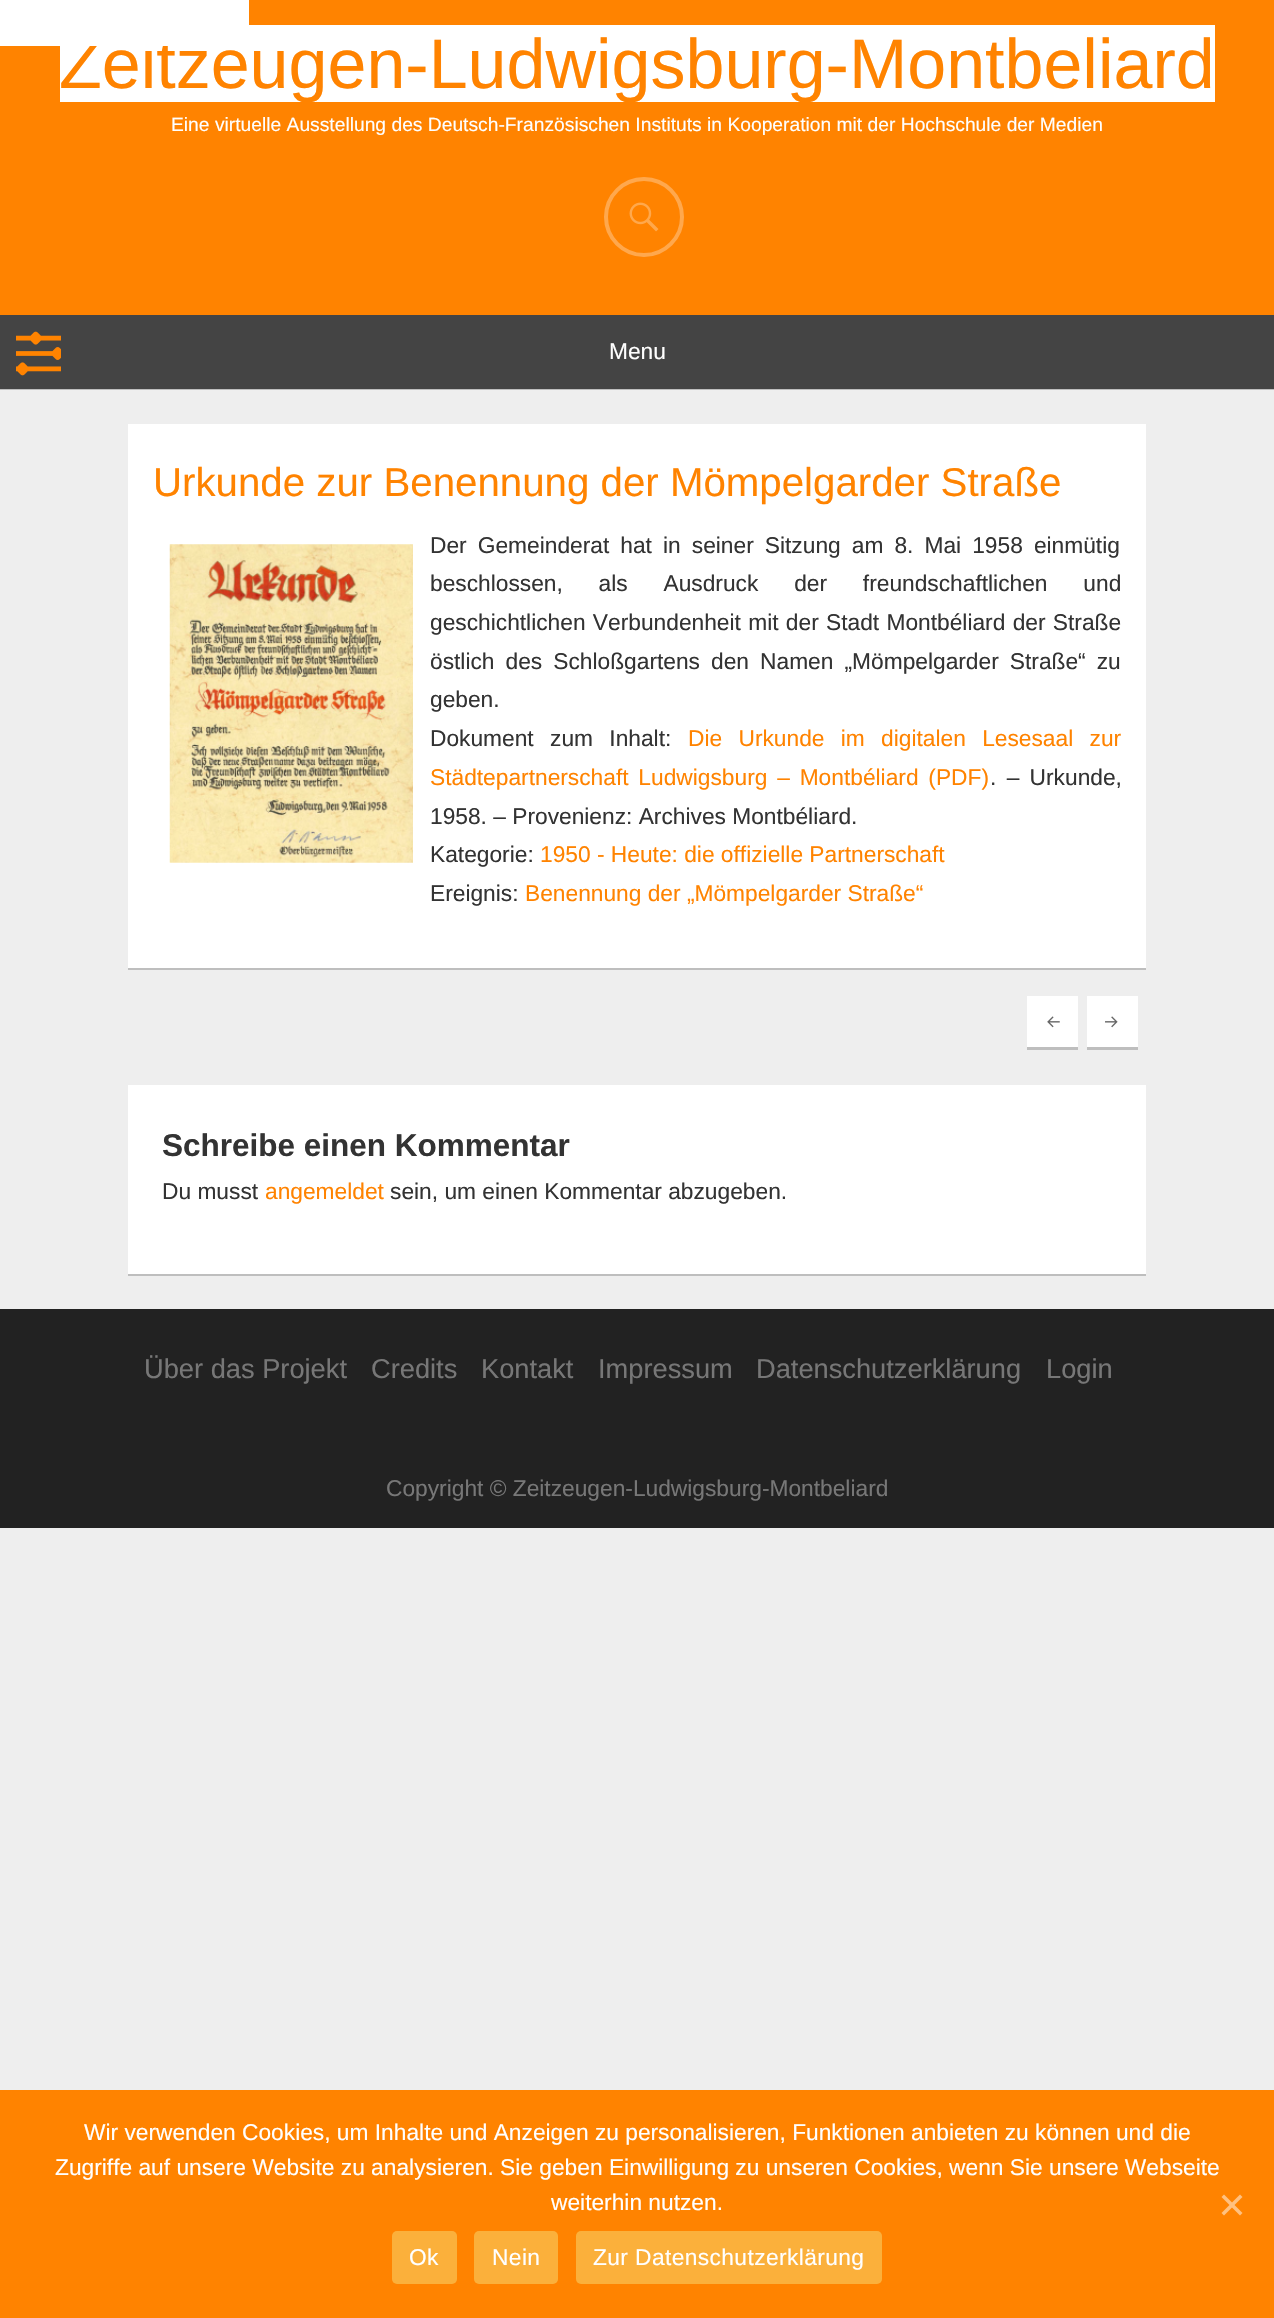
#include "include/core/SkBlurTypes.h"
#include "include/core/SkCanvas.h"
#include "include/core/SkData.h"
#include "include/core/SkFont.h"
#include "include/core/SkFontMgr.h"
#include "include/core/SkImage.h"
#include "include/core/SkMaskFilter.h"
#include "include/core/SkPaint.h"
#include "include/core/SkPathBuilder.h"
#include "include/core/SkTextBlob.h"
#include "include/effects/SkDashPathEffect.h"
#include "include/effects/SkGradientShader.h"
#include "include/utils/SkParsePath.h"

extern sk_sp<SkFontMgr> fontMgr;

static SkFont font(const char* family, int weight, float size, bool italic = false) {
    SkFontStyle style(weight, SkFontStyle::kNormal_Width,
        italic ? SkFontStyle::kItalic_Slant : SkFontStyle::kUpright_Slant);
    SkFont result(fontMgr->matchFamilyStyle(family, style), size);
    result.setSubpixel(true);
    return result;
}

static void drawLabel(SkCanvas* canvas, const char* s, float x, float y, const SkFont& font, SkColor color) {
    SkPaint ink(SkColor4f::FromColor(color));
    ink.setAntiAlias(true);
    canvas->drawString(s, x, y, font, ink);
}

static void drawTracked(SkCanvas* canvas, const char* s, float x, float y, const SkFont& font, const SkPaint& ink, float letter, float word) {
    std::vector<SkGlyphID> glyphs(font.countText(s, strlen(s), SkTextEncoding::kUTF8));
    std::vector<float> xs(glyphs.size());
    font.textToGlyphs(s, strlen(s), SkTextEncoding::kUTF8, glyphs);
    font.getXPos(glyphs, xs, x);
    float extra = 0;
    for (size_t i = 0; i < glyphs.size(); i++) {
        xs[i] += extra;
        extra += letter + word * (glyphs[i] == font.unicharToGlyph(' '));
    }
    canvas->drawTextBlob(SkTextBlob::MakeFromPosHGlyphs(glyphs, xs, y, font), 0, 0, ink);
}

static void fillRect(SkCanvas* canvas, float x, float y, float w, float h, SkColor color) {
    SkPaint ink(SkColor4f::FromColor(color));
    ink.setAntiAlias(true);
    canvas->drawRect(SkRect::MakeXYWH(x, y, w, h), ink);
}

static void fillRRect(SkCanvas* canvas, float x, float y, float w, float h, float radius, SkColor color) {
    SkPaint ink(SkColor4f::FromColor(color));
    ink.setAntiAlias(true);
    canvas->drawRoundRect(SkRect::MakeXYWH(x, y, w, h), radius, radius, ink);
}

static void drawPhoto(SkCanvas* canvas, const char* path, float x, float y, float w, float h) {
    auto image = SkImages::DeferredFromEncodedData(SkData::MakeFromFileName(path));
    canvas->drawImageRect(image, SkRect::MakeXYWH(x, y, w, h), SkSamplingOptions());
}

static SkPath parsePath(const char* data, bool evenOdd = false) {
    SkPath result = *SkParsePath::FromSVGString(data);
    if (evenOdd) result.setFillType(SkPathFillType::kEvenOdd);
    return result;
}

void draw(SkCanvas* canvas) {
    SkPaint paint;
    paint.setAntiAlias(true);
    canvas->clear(0xFFEEEEEE);
    fillRect(canvas, 0, 0, 1274, 315, 0xFFFF8300);
    fillRect(canvas, 60, 25, 1155, 77, 0xFFFFFFFF);
    SkFont font1 = font("Liberation Sans", 400, 70);
    drawLabel(canvas, "Zeitzeugen-Ludwigsburg-Montbeliard", 59, 88, font1, 0xFFFF8300);
    SkFont font2 = font("Liberation Sans", 400, 19.25f);
    drawLabel(canvas, "Eine virtuelle Ausstellung des Deutsch-Französischen Instituts in Kooperation mit der Hochschule der Medien", 171, 131, font2, 0xFFFFFFFF);
    paint.setStroke(true);
    paint.setStrokeWidth(4);
    paint.setColor(0xFFFFA84D);
    canvas->drawCircle(644, 217, 38, paint);
    drawPhoto(canvas, "assets/img1.png", 629, 202, 30, 30);
    fillRect(canvas, 0, 315, 1274, 74, 0xFF444444);
    drawPhoto(canvas, "assets/img2.png", 16, 331, 45, 45);
    fillRect(canvas, 0, 389, 1274, 1, 0xFFBEBEBE);
    SkFont font3 = font("Liberation Sans", 400, 22.75f);
    drawLabel(canvas, "Menu", 609, 359, font3, 0xFFFFFFFF);
    fillRect(canvas, 128, 968, 1018, 2, 0xFFBEBEBE);
    fillRect(canvas, 128, 424, 1018, 544, 0xFFFFFFFF);
    SkFont font4 = font("Liberation Sans", 400, 40.25f);
    drawLabel(canvas, "Urkunde zur Benennung der Mömpelgarder Straße", 153, 496, font4, 0xFFFF8300);
    drawPhoto(canvas, "assets/img3.png", 169, 544, 244, 319);
    paint.setStroke(false);
    paint.setColor(0xFF333333);
    drawTracked(canvas, "Der Gemeinderat hat in seiner Sitzung am 8. Mai 1958 einmütig", 430, 553, font3, paint, 0, 4.75f);
    drawTracked(canvas, "beschlossen, als Ausdruck der freundschaftlichen und", 430, 591, font3, paint, 0, 29.5f);
    drawTracked(canvas, "geschichtlichen Verbundenheit mit der Stadt Montbéliard der Straße", 430, 630, font3, paint, 0, 1);
    drawTracked(canvas, "östlich des Schloßgartens den Namen „Mömpelgarder Straße“ zu", 430, 669, font3, paint, 0, 4.75f);
    drawLabel(canvas, "geben.", 430, 707, font3, 0xFF333333);
    drawTracked(canvas, "Dokument zum Inhalt:", 430, 746, font3, paint, 0, 10);
    paint.setColor(0xFFFF8300);
    drawTracked(canvas, "Die Urkunde im digitalen Lesesaal zur", 688, 746, font3, paint, 0, 10);
    drawTracked(canvas, "Städtepartnerschaft Ludwigsburg – Montbéliard (PDF)", 430, 785, font3, paint, 0, 3.5f);
    paint.setColor(0xFF333333);
    drawTracked(canvas, ". – Urkunde,", 990, 785, font3, paint, 0, 4);
    drawLabel(canvas, "1958. – Provenienz: Archives Montbéliard.", 430, 824, font3, 0xFF333333);
    drawLabel(canvas, "Kategorie:", 430, 862, font3, 0xFF333333);
    drawLabel(canvas, "1950 - Heute: die offizielle Partnerschaft", 540, 862, font3, 0xFFFF8300);
    drawLabel(canvas, "Ereignis:", 430, 901, font3, 0xFF333333);
    drawLabel(canvas, "Benennung der „Mömpelgarder Straße“", 525, 901, font3, 0xFFFF8300);
    paint.setColor(0xFFBEBEBE);
    canvas->drawPath(parsePath("M1027 999V1050H1078V1046H1027Z"), paint);
    fillRect(canvas, 1027, 996, 51, 51, 0xFFFFFFFF);
    drawPhoto(canvas, "assets/img4.png", 1047, 1016, 13, 12);
    canvas->drawPath(parsePath("M1087 1046V1050H1138V999V1046Z"), paint);
    fillRect(canvas, 1087, 996, 51, 51, 0xFFFFFFFF);
    drawPhoto(canvas, "assets/img5.png", 1105, 1016, 13, 12);
    fillRect(canvas, 128, 1274, 1018, 2, 0xFFBEBEBE);
    fillRect(canvas, 128, 1085, 1018, 189, 0xFFFFFFFF);
    SkFont font5 = font("Liberation Sans", 700, 31.5f);
    drawLabel(canvas, "Schreibe einen Kommentar", 162, 1156, font5, 0xFF333333);
    drawLabel(canvas, "Du musst", 162, 1199, font3, 0xFF333333);
    drawLabel(canvas, "angemeldet", 265, 1199, font3, 0xFFFF8300);
    drawLabel(canvas, "sein, um einen Kommentar abzugeben.", 390, 1199, font3, 0xFF333333);
    fillRect(canvas, 0, 1309, 1274, 219, 0xFF222222);
    fillRect(canvas, 0, 0, 249, 46, 0xFFFFFFFF);
    SkFont font6 = font("Liberation Sans", 400, 27.25f);
    drawLabel(canvas, "Über das Projekt", 144, 1378, font6, 0xFF777777);
    drawLabel(canvas, "Credits", 371, 1378, font6, 0xFF777777);
    drawLabel(canvas, "Kontakt", 481, 1378, font6, 0xFF777777);
    drawLabel(canvas, "Impressum", 598, 1378, font6, 0xFF777777);
    drawLabel(canvas, "Datenschutzerklärung", 756, 1378, font6, 0xFF777777);
    drawLabel(canvas, "Login", 1046, 1378, font6, 0xFF777777);
    drawLabel(canvas, "Copyright © Zeitzeugen-Ludwigsburg-Montbeliard", 386, 1496, font3, 0xFF777777);
    fillRect(canvas, 0, 2090, 1274, 228, 0xFFFF8300);
    drawLabel(canvas, "Wir verwenden Cookies, um Inhalte und Anzeigen zu personalisieren, Funktionen anbieten zu können und die", 84, 2140, font3, 0xFFFFFFFF);
    drawLabel(canvas, "Zugriffe auf unsere Website zu analysieren. Sie geben Einwilligung zu unseren Cookies, wenn Sie unsere Webseite", 55, 2175, font3, 0xFFFFFFFF);
    drawLabel(canvas, "weiterhin nutzen.", 551, 2210, font3, 0xFFFFFFFF);
    paint.setColor(0xFFFFC180);
    canvas->drawPath(parsePath("M1240 2194.5L1242.5 2197L1224 2215.5L1221.5 2213Z"), paint);
    canvas->drawPath(parsePath("M1221.5 2197L1224 2194.5L1242.5 2213L1240 2215.5Z"), paint);
    fillRRect(canvas, 392, 2231, 65, 53, 5, 0xFFFBB03B);
    paint.setColor(0xFFFFFFFF);
    drawTracked(canvas, "Ok", 409, 2265, font3, paint, 0.4f, 0);
    fillRRect(canvas, 474, 2231, 84, 53, 5, 0xFFFBB03B);
    drawTracked(canvas, "Nein", 492, 2265, font3, paint, 0.4f, 0);
    fillRRect(canvas, 576, 2231, 306, 53, 5, 0xFFFBB03B);
    drawTracked(canvas, "Zur Datenschutzerklärung", 593, 2265, font3, paint, 0.4f, 0);
}
